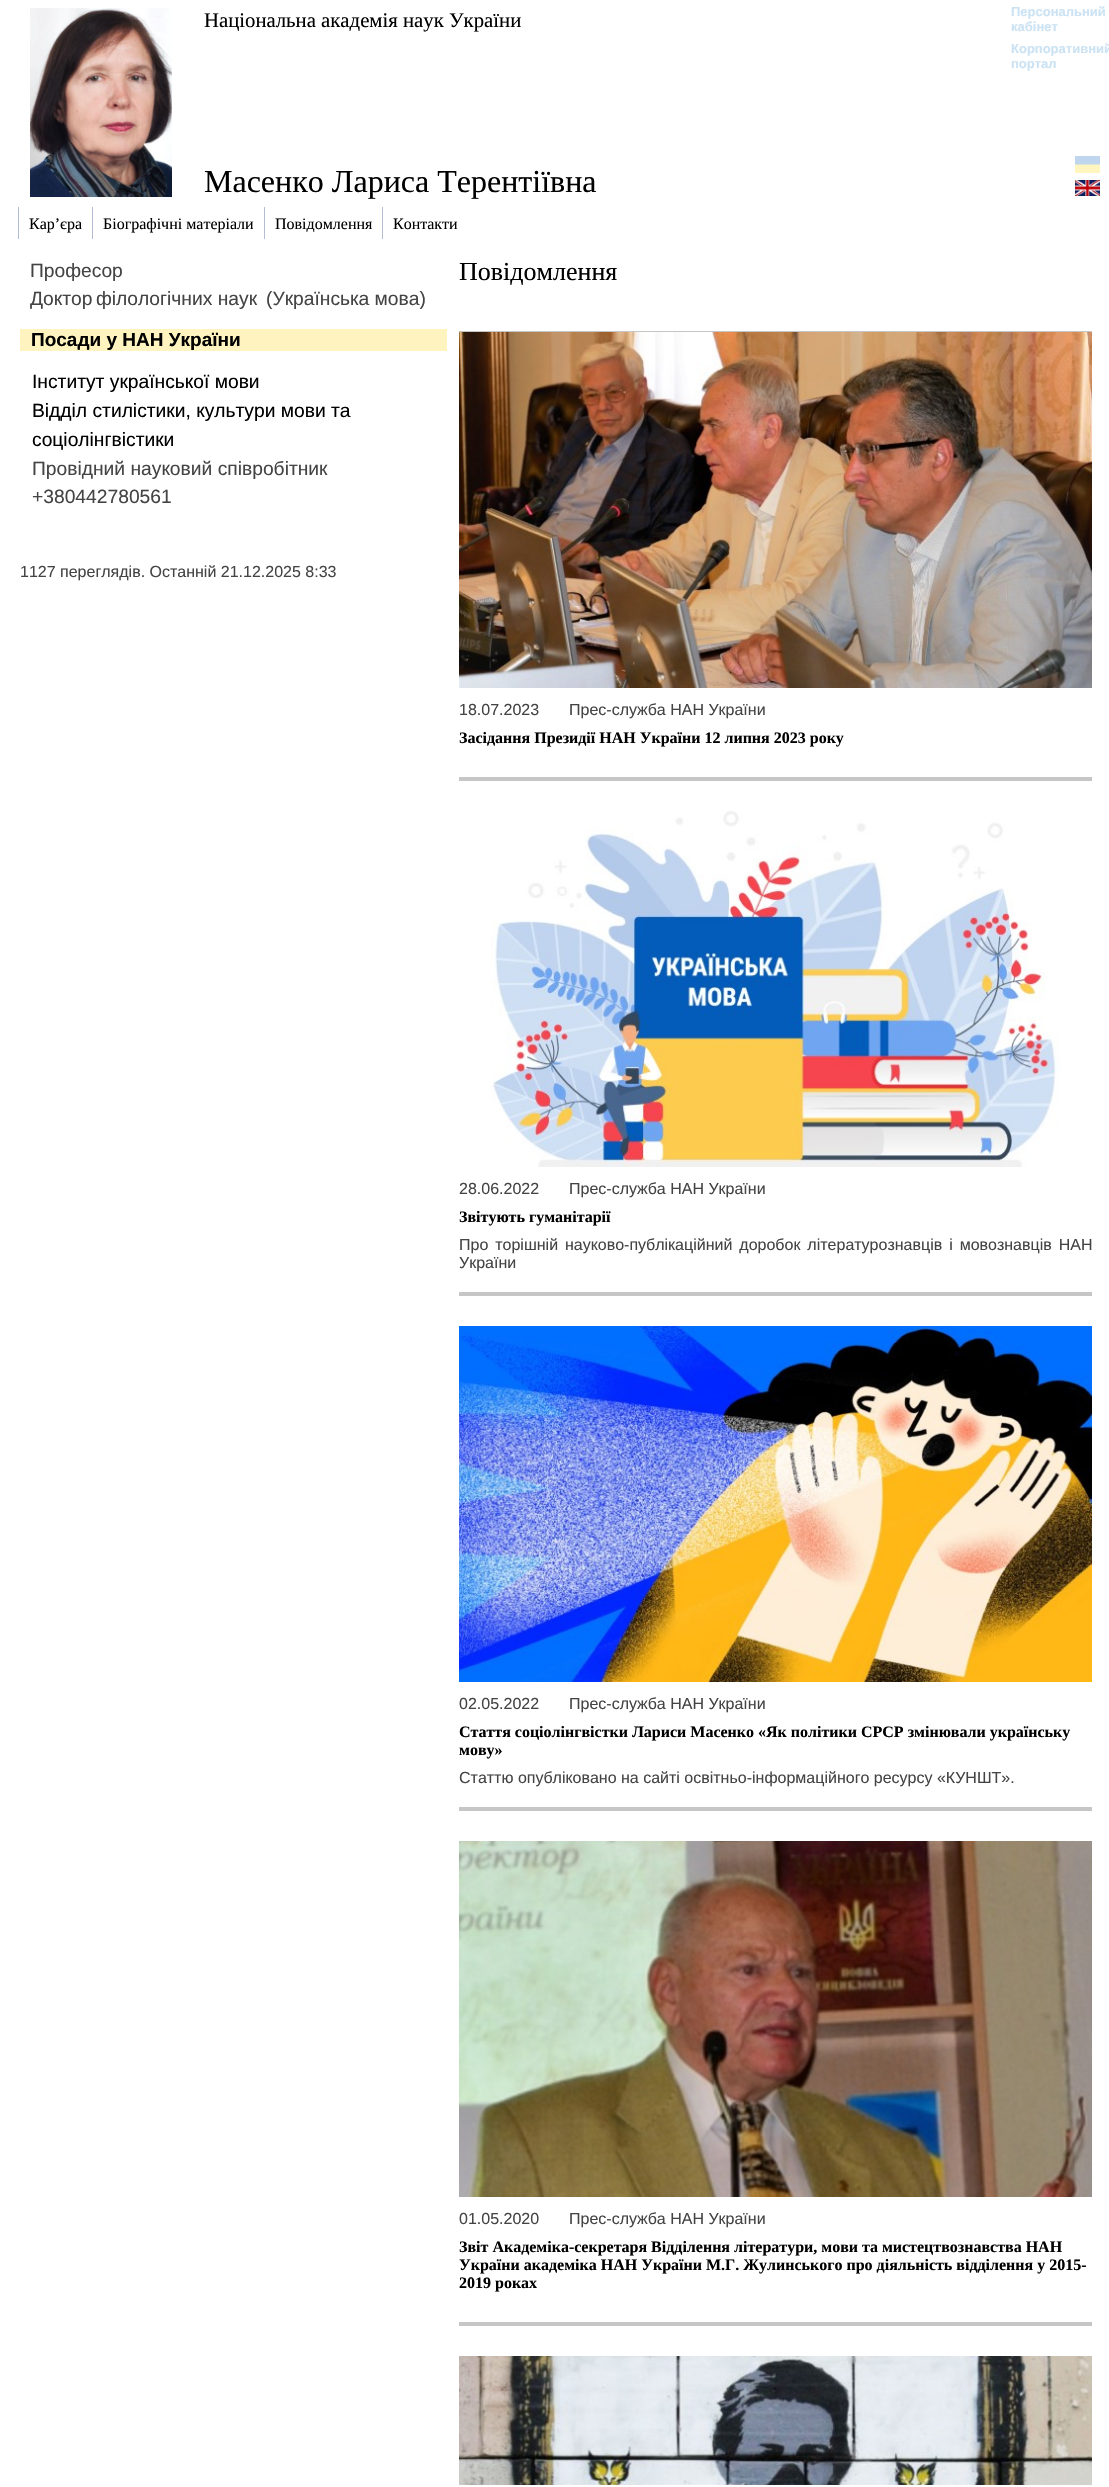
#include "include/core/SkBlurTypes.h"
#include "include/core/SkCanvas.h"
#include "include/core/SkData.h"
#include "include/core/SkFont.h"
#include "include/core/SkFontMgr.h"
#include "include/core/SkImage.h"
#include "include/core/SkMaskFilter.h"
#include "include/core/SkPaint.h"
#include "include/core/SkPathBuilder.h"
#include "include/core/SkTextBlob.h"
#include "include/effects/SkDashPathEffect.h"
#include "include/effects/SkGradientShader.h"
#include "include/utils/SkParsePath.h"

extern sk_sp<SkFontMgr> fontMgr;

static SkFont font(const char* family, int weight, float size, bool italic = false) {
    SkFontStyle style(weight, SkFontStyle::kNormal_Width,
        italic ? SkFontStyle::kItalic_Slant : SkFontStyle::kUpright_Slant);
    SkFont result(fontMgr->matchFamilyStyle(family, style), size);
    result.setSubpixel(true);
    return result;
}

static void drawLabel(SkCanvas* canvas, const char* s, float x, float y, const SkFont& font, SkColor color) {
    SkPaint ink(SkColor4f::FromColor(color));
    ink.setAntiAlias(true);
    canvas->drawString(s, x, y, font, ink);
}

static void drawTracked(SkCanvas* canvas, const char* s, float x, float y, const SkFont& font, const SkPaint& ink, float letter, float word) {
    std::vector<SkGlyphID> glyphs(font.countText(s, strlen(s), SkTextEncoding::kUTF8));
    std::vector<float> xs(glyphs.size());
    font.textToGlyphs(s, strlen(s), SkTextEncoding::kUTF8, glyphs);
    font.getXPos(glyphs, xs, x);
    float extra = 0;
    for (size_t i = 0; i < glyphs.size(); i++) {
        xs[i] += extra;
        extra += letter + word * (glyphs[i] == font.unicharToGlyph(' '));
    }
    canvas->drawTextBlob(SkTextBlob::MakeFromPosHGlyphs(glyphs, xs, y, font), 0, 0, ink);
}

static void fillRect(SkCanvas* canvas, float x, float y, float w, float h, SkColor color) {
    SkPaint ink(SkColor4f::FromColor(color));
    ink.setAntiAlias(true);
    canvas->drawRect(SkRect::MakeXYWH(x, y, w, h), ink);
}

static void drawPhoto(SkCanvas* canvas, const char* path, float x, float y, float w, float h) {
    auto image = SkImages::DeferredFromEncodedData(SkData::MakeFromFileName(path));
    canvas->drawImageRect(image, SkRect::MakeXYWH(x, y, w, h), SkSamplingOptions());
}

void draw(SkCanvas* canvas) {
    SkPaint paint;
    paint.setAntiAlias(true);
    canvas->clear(0xFFFFFFFF);
    drawPhoto(canvas, "assets/img1.png", 30, 8, 142, 189);
    SkFont font1 = font("Liberation Serif", 400, 20.75f);
    drawLabel(canvas, "Національна академія наук України", 204, 27, font1, 0xFF000000);
    SkFont font2 = font("Liberation Sans", 700, 13);
    drawLabel(canvas, "Персональний", 1011, 16, font2, 0xFFCCE3F4);
    drawLabel(canvas, "кабінет", 1011, 31, font2, 0xFFCCE3F4);
    drawLabel(canvas, "Корпоративний", 1011, 53, font2, 0xFFCCE3F4);
    drawLabel(canvas, "портал", 1011, 68, font2, 0xFFCCE3F4);
    SkFont font3 = font("Liberation Serif", 400, 32);
    drawLabel(canvas, "Масенко Лариса Терентіївна", 204, 192, font3, 0xFF000000);
    drawPhoto(canvas, "assets/img2.png", 1075, 156, 25, 17);
    drawPhoto(canvas, "assets/img3.png", 1075, 180, 25, 16);
    fillRect(canvas, 18, 207, 1, 32, 0xFFB2BDD3);
    SkFont font4 = font("Liberation Serif", 400, 16);
    drawLabel(canvas, "Кар’єра", 29, 229, font4, 0xFF000000);
    fillRect(canvas, 92, 207, 1, 32, 0xFFB2BDD3);
    drawLabel(canvas, "Біографічні матеріали", 103, 229, font4, 0xFF000000);
    fillRect(canvas, 264, 207, 1, 32, 0xFFB2BDD3);
    drawLabel(canvas, "Повідомлення", 275, 229, font4, 0xFF000000);
    fillRect(canvas, 382, 207, 1, 32, 0xFFB2BDD3);
    drawLabel(canvas, "Контакти", 393, 229, font4, 0xFF000000);
    SkFont font5 = font("Liberation Sans", 400, 19.25f);
    drawLabel(canvas, "Професор", 30, 277, font5, 0xFF444444);
    drawLabel(canvas, "Доктор", 30, 305, font5, 0xFF444444);
    drawLabel(canvas, "філологічних наук", 96, 305, font5, 0xFF444444);
    drawLabel(canvas, "(Українська мова)", 266, 305, font5, 0xFF444444);
    fillRect(canvas, 20, 329, 427, 22, 0xFFFFF4BF);
    SkFont font6 = font("Liberation Sans", 700, 19);
    drawLabel(canvas, "Посади у НАН України", 31, 346, font6, 0xFF000000);
    drawLabel(canvas, "Інститут української мови", 32, 388, font5, 0xFF000000);
    drawLabel(canvas, "Відділ стилістики, культури мови та", 32, 417, font5, 0xFF000000);
    drawLabel(canvas, "соціолінгвістики", 32, 446, font5, 0xFF000000);
    drawLabel(canvas, "Провідний науковий співробітник", 32, 475, font5, 0xFF444444);
    drawLabel(canvas, "+380442780561", 32, 503, font5, 0xFF444444);
    SkFont font7 = font("Liberation Sans", 400, 16);
    drawLabel(canvas, "1127 переглядів. Останній 21.12.2025 8:33", 20, 577, font7, 0xFF444444);
    SkFont font8 = font("Liberation Serif", 400, 26);
    drawLabel(canvas, "Повідомлення", 459, 280, font8, 0xFF000000);
    fillRect(canvas, 459, 331, 633, 1, 0xFFC6C6C6);
    drawPhoto(canvas, "assets/img4.png", 459, 332, 633, 356);
    drawLabel(canvas, "18.07.2023", 459, 715, font7, 0xFF444444);
    drawLabel(canvas, "Прес-служба НАН України", 569, 715, font7, 0xFF444444);
    SkFont font9 = font("Liberation Serif", 700, 16);
    drawLabel(canvas, "Засідання Президії НАН України 12 липня 2023 року", 459, 743, font9, 0xFF000000);
    fillRect(canvas, 459, 777, 633, 4, 0xFFC6C6C6);
    drawPhoto(canvas, "assets/img5.png", 491, 811, 569, 356);
    drawLabel(canvas, "28.06.2022", 459, 1194, font7, 0xFF444444);
    drawLabel(canvas, "Прес-служба НАН України", 569, 1194, font7, 0xFF444444);
    drawLabel(canvas, "Звітують гуманітарії", 459, 1222, font9, 0xFF000000);
    paint.setColor(0xFF444444);
    drawTracked(canvas, "Про торішній науково-публікаційний доробок літературознавців і мовознавців НАН", 459, 1250, font7, paint, 0, 2.5f);
    drawLabel(canvas, "України", 459, 1268, font7, 0xFF444444);
    fillRect(canvas, 459, 1292, 633, 4, 0xFFC6C6C6);
    drawPhoto(canvas, "assets/img6.png", 459, 1326, 633, 356);
    drawLabel(canvas, "02.05.2022", 459, 1709, font7, 0xFF444444);
    drawLabel(canvas, "Прес-служба НАН України", 569, 1709, font7, 0xFF444444);
    drawLabel(canvas, "Стаття соціолінгвістки Лариси Масенко «Як політики СРСР змінювали українську", 459, 1737, font9, 0xFF000000);
    drawLabel(canvas, "мову»", 459, 1755, font9, 0xFF000000);
    drawLabel(canvas, "Статтю опубліковано на сайті освітньо-інформаційного ресурсу «КУНШТ».", 459, 1783, font7, 0xFF444444);
    fillRect(canvas, 459, 1807, 633, 4, 0xFFC6C6C6);
    drawPhoto(canvas, "assets/img7.png", 459, 1841, 633, 356);
    drawLabel(canvas, "01.05.2020", 459, 2224, font7, 0xFF444444);
    drawLabel(canvas, "Прес-служба НАН України", 569, 2224, font7, 0xFF444444);
    drawLabel(canvas, "Звіт Академіка-секретаря Відділення літератури, мови та мистецтвознавства НАН", 459, 2252, font9, 0xFF000000);
    drawLabel(canvas, "України академіка НАН України М.Г. Жулинського про діяльність відділення у 2015-", 459, 2270, font9, 0xFF000000);
    drawLabel(canvas, "2019 роках", 459, 2288, font9, 0xFF000000);
    fillRect(canvas, 459, 2322, 633, 4, 0xFFC6C6C6);
    drawPhoto(canvas, "assets/img8.png", 459, 2356, 633, 129);
}
